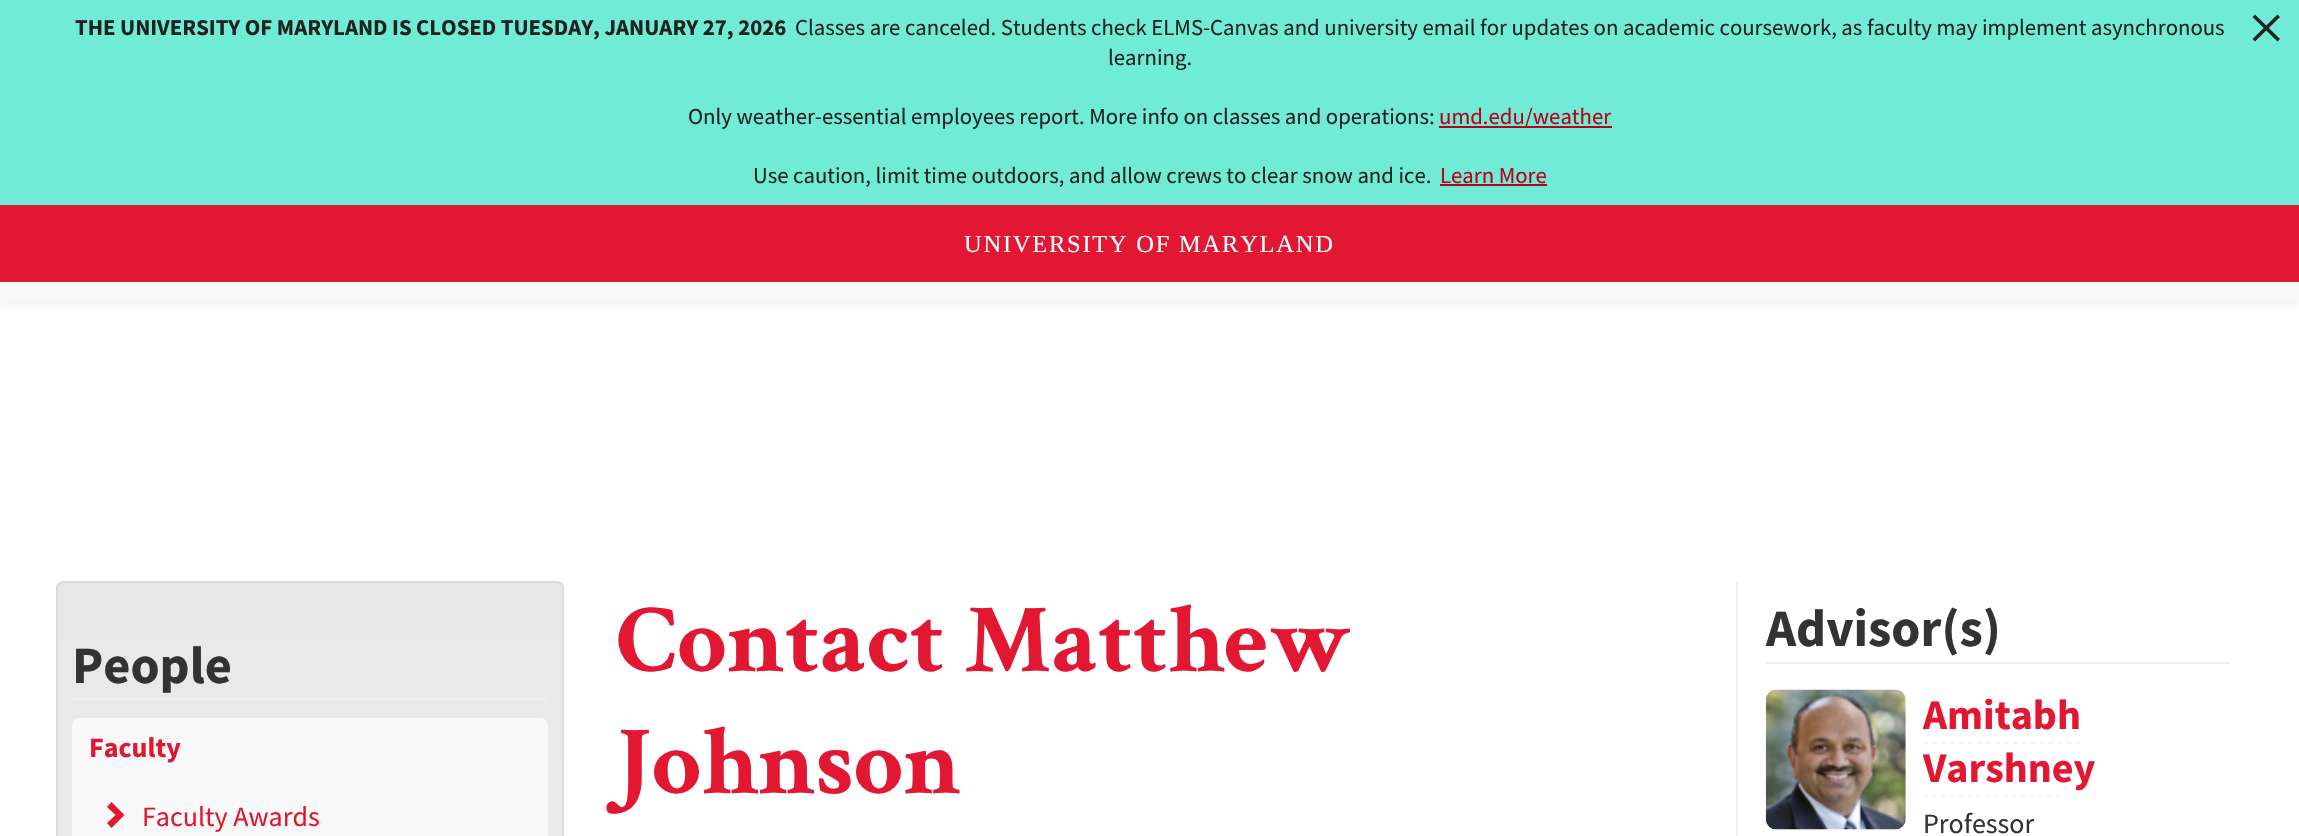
#include "include/core/SkBlurTypes.h"
#include "include/core/SkCanvas.h"
#include "include/core/SkData.h"
#include "include/core/SkFont.h"
#include "include/core/SkFontMgr.h"
#include "include/core/SkImage.h"
#include "include/core/SkMaskFilter.h"
#include "include/core/SkPaint.h"
#include "include/core/SkPathBuilder.h"
#include "include/core/SkTextBlob.h"
#include "include/effects/SkDashPathEffect.h"
#include "include/effects/SkGradientShader.h"
#include "include/utils/SkParsePath.h"

extern sk_sp<SkFontMgr> fontMgr;

static SkFont font(const char* family, int weight, float size, bool italic = false) {
    SkFontStyle style(weight, SkFontStyle::kNormal_Width,
        italic ? SkFontStyle::kItalic_Slant : SkFontStyle::kUpright_Slant);
    SkFont result(fontMgr->matchFamilyStyle(family, style), size);
    result.setSubpixel(true);
    return result;
}

static void drawLabel(SkCanvas* canvas, const char* s, float x, float y, const SkFont& font, SkColor color) {
    SkPaint ink(SkColor4f::FromColor(color));
    ink.setAntiAlias(true);
    canvas->drawString(s, x, y, font, ink);
}

static void drawTracked(SkCanvas* canvas, const char* s, float x, float y, const SkFont& font, const SkPaint& ink, float letter, float word) {
    std::vector<SkGlyphID> glyphs(font.countText(s, strlen(s), SkTextEncoding::kUTF8));
    std::vector<float> xs(glyphs.size());
    font.textToGlyphs(s, strlen(s), SkTextEncoding::kUTF8, glyphs);
    font.getXPos(glyphs, xs, x);
    float extra = 0;
    for (size_t i = 0; i < glyphs.size(); i++) {
        xs[i] += extra;
        extra += letter + word * (glyphs[i] == font.unicharToGlyph(' '));
    }
    canvas->drawTextBlob(SkTextBlob::MakeFromPosHGlyphs(glyphs, xs, y, font), 0, 0, ink);
}

static void fillRect(SkCanvas* canvas, float x, float y, float w, float h, SkColor color) {
    SkPaint ink(SkColor4f::FromColor(color));
    ink.setAntiAlias(true);
    canvas->drawRect(SkRect::MakeXYWH(x, y, w, h), ink);
}

static void fillRRect(SkCanvas* canvas, float x, float y, float w, float h, float radius, SkColor color) {
    SkPaint ink(SkColor4f::FromColor(color));
    ink.setAntiAlias(true);
    canvas->drawRoundRect(SkRect::MakeXYWH(x, y, w, h), radius, radius, ink);
}

static void drawPhoto(SkCanvas* canvas, const char* path, float x, float y, float w, float h) {
    auto image = SkImages::DeferredFromEncodedData(SkData::MakeFromFileName(path));
    canvas->drawImageRect(image, SkRect::MakeXYWH(x, y, w, h), SkSamplingOptions());
}

static SkPath parsePath(const char* data, bool evenOdd = false) {
    SkPath result = *SkParsePath::FromSVGString(data);
    if (evenOdd) result.setFillType(SkPathFillType::kEvenOdd);
    return result;
}

void draw(SkCanvas* canvas) {
    SkPaint paint;
    paint.setAntiAlias(true);
    canvas->clear(0xFFFFFFFF);
    paint.setColor(0x12000000);
    paint.setMaskFilter(SkMaskFilter::MakeBlur(kNormal_SkBlurStyle, 4.5f));
    canvas->drawRect(SkRect::MakeXYWH(0, 2, 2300, 301), paint);
    paint.setMaskFilter(nullptr);
    {
        const SkColor colors[] = {0xFFFFFFFF, 0xFFF8F8F8};
        const float stops[] = {0, 1};
        const SkPoint ends[] = {{1150, 0}, {1150, 301}};
        paint.setShader(SkGradientShader::MakeLinear(ends, colors, stops, 2, SkTileMode::kClamp));
        paint.setAlpha(255);
    }
    canvas->drawRect(SkRect::MakeXYWH(0, 282, 2299, 19), paint);
    fillRect(canvas, 0, 0, 2299, 205, 0xFF70EBD6);
    SkFont font1 = font("Source Sans Pro", 700, 22.75f);
    drawLabel(canvas, "THE UNIVERSITY OF MARYLAND IS CLOSED TUESDAY, JANUARY 27, 2026", 75, 35, font1, 0xFF222222);
    SkFont font2 = font("Source Sans Pro", 400, 22.75f);
    drawLabel(canvas, "Classes are canceled. Students check ELMS-Canvas and university email for updates on academic coursework, as faculty may implement asynchronous", 795, 35, font2, 0xFF222222);
    paint.setShader(nullptr);
    paint.setColor(0xFF222222);
    canvas->drawPath(parsePath("M2280 39L2277.5 41.5L2252.5 17L2255 14.5Z"), paint);
    canvas->drawPath(parsePath("M2277.5 14.5L2280 17L2255 41.5L2252.5 39Z"), paint);
    drawLabel(canvas, "learning.", 1108, 65, font2, 0xFF222222);
    drawLabel(canvas, "Only weather-essential employees report. More info on classes and operations:", 688, 124, font2, 0xFF222222);
    fillRect(canvas, 1439, 126, 173, 2, 0xFFBB0019);
    drawLabel(canvas, "umd.edu/weather", 1439, 124, font2, 0xFFBB0019);
    drawLabel(canvas, "Use caution, limit time outdoors, and allow crews to clear snow and ice.", 753, 183, font2, 0xFF222222);
    drawLabel(canvas, "Learn More", 1440, 183, font2, 0xFFBB0019);
    fillRect(canvas, 1440, 184, 107, 2, 0xFFBB0019);
    fillRect(canvas, 0, 205, 2299, 77, 0xFFE21833);
    SkFont font3 = font("Liberation Serif", 400, 24.5f);
    paint.setColor(0xFFFFFFFF);
    drawTracked(canvas, "UNIVERSITY OF MARYLAND", 964, 252, font3, paint, 1.75f, 0);
    canvas->save();
    canvas->clipPath(parsePath("M63 581H557C561 581 564 584 564 588V2097C564 2101 561 2104 557 2104H63C59 2104 56 2101 56 2097V588C56 584 59 581 63 581Z"), true);
    {
        const SkColor colors[] = {0xFFE8E8E8, 0xFFF5F5F5};
        const float stops[] = {0, 1};
        const SkPoint ends[] = {{310, 583}, {310, 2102}};
        paint.setShader(SkGradientShader::MakeLinear(ends, colors, stops, 2, SkTileMode::kClamp));
        paint.setAlpha(255);
    }
    canvas->drawRect(SkRect::MakeXYWH(56, 583, 508, 253), paint);
    canvas->restore();
    paint.setStroke(true);
    paint.setStrokeWidth(2);
    paint.setShader(nullptr);
    paint.setColor(0xFFDCDCDC);
    canvas->drawRoundRect(SkRect::MakeXYWH(57, 582, 506, 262), 6, 6, paint);
    fillRect(canvas, 72, 698, 476, 2, 0xFFEEEEEE);
    SkFont font4 = font("Source Sans Pro", 700, 52.5f);
    drawLabel(canvas, "People", 72, 683, font4, 0xFF333333);
    fillRRect(canvas, 72, 718, 476, 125, 7, 0xFFF9F9F9);
    SkFont font5 = font("Source Sans Pro", 700, 28);
    drawLabel(canvas, "Faculty", 89, 757, font5, 0xFFE21833);
    paint.setStroke(false);
    paint.setColor(0xFFE21833);
    canvas->drawPath(parsePath("M124.5 815L111.5 828L107 823L115.5 815L107 807L111.5 802Z"), paint);
    SkFont font6 = font("Source Sans Pro", 400, 28);
    drawLabel(canvas, "Faculty Awards", 142, 826, font6, 0xFFE21833);
    SkFont font7 = font("Crimson Text", 700, 98);
    drawLabel(canvas, "Contact Matthew", 616, 671, font7, 0xFFE21833);
    drawLabel(canvas, "Johnson", 616, 793, font7, 0xFFE21833);
    fillRect(canvas, 1736, 581, 2, 255, 0xFFEEEEEE);
    fillRect(canvas, 1766, 662, 464, 2, 0xFFEEEEEE);
    drawLabel(canvas, "Advisor(s)", 1766, 646, font4, 0xFF333333);
    paint.setStroke(true);
    paint.setStrokeWidth(1.8f);
    paint.setColor(0xFFF5F5F5);
    paint.setPathEffect(SkDashPathEffect::Make({{5.25f, 3.73f}}, 0));
    canvas->drawPath(parsePath("M1766 774.5H1906"), paint);
    paint.setPathEffect(nullptr);
    drawPhoto(canvas, "assets/img1.png", 1765, 689, 141, 141);
    SkFont font8 = font("Source Sans Pro", 700, 42);
    drawLabel(canvas, "Amitabh", 1923, 729, font8, 0xFFE21833);
    drawLabel(canvas, "Varshney", 1923, 782, font8, 0xFFE21833);
    paint.setPathEffect(SkDashPathEffect::Make({{5.25f, 3.71f}}, 0));
    canvas->drawPath(parsePath("M1923 743H2081"), paint);
    paint.setPathEffect(nullptr);
    paint.setPathEffect(SkDashPathEffect::Make({{5.25f, 3.59f}}, 0));
    canvas->drawPath(parsePath("M1923 795.5H2096.5"), paint);
    paint.setPathEffect(nullptr);
    drawLabel(canvas, "Professor", 1923, 833, font6, 0xFF333333);
}
